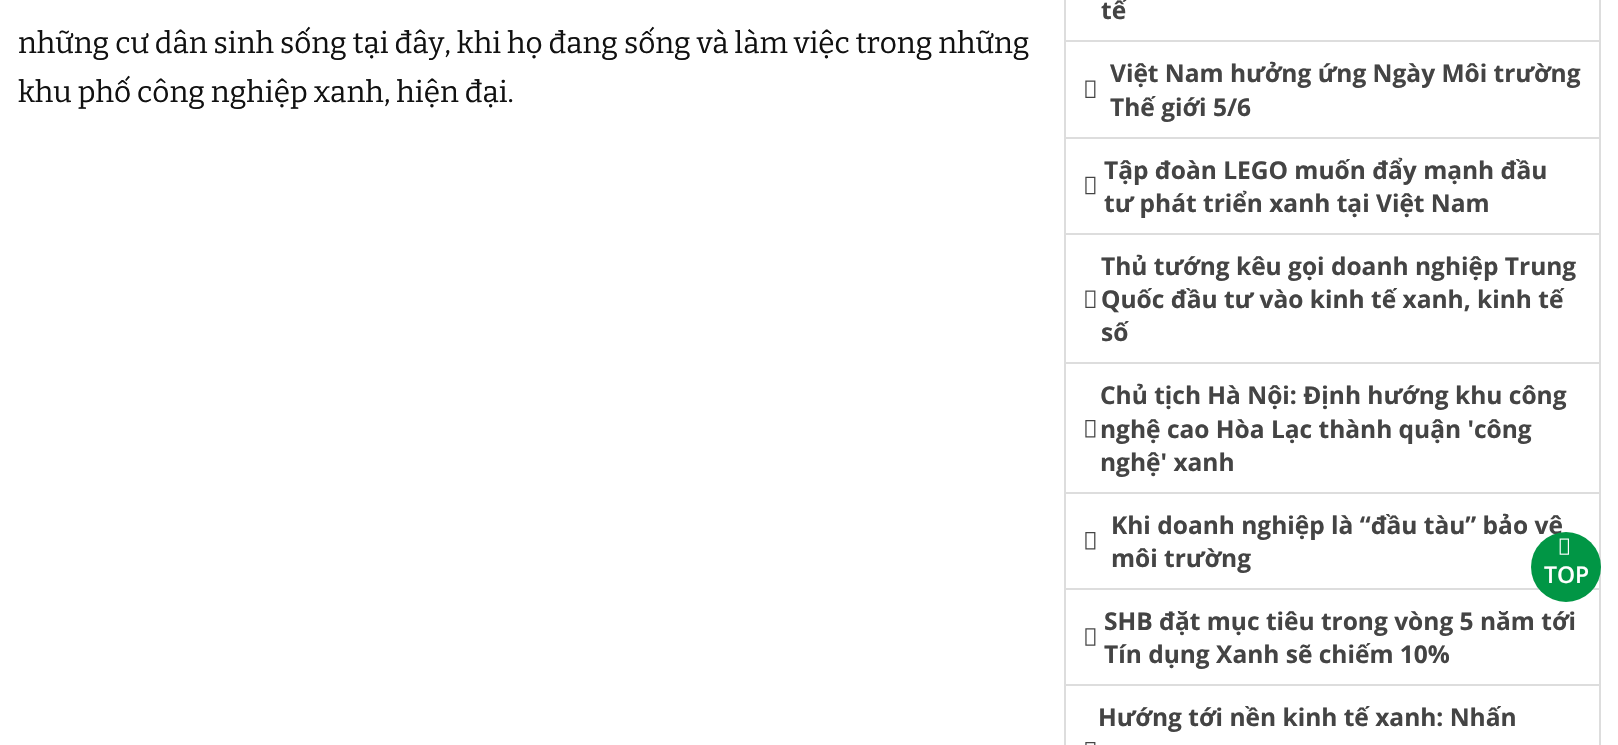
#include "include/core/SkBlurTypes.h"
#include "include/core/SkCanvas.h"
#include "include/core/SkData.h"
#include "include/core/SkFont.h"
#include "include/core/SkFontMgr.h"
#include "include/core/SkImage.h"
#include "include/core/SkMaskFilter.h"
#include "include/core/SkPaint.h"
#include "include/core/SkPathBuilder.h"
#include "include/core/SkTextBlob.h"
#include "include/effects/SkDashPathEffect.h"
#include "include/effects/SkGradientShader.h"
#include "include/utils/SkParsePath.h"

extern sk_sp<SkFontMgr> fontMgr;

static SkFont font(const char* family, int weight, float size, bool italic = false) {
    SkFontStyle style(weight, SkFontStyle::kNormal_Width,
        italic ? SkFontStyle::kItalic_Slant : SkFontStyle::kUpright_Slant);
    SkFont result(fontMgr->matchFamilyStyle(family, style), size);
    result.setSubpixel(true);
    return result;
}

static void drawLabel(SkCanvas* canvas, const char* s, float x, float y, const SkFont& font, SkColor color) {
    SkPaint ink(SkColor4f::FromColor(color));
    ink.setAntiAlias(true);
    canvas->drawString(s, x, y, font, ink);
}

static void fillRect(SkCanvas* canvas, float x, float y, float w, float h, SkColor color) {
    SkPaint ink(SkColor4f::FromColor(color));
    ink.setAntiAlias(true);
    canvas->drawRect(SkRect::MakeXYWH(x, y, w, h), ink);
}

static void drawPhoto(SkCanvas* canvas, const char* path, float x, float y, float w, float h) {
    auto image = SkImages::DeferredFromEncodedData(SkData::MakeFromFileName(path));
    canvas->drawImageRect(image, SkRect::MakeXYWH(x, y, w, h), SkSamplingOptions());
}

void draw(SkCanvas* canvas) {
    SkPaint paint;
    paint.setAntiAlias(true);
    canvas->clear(0xFFFFFFFF);
    SkFont font1 = font("Bitter", 400, 29.75f);
    drawLabel(canvas, "những cư dân sinh sống tại đây, khi họ đang sống và làm việc trong những", 18, 53, font1, 0xFF111111);
    drawLabel(canvas, "khu phố công nghiệp xanh, hiện đại.", 18, 102, font1, 0xFF111111);
    paint.setStroke(true);
    paint.setStrokeWidth(2);
    paint.setColor(0xFFDDDDDD);
    canvas->drawRect(SkRect::MakeXYWH(1065, -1, 535, 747), paint);
    fillRect(canvas, 1066, 40, 534, 2, 0xFFDDDDDD);
    SkFont font2 = font("Open Sans", 700, 24.5f);
    drawLabel(canvas, "tế", 1101, 19, font2, 0xFF444444);
    fillRect(canvas, 1066, 137, 534, 2, 0xFFDDDDDD);
    drawPhoto(canvas, "assets/img1.png", 1085, 80, 11, 18);
    drawLabel(canvas, "Việt Nam hưởng ứng Ngày Môi trường", 1110, 82, font2, 0xFF444444);
    drawLabel(canvas, "Thế giới 5/6", 1110, 116, font2, 0xFF444444);
    fillRect(canvas, 1066, 233, 534, 2, 0xFFDDDDDD);
    drawPhoto(canvas, "assets/img2.png", 1085, 176, 11, 19);
    drawLabel(canvas, "Tập đoàn LEGO muốn đẩy mạnh đầu", 1104, 179, font2, 0xFF444444);
    drawLabel(canvas, "tư phát triển xanh tại Việt Nam", 1104, 212, font2, 0xFF444444);
    fillRect(canvas, 1066, 362, 534, 2, 0xFFDDDDDD);
    drawPhoto(canvas, "assets/img1.png", 1085, 290, 11, 18);
    drawLabel(canvas, "Thủ tướng kêu gọi doanh nghiệp Trung", 1101, 275, font2, 0xFF444444);
    drawLabel(canvas, "Quốc đầu tư vào kinh tế xanh, kinh tế", 1101, 308, font2, 0xFF444444);
    drawLabel(canvas, "số", 1101, 341, font2, 0xFF444444);
    fillRect(canvas, 1066, 492, 534, 2, 0xFFDDDDDD);
    drawPhoto(canvas, "assets/img3.png", 1085, 420, 11, 18);
    drawLabel(canvas, "Chủ tịch Hà Nội: Định hướng khu công", 1100, 404, font2, 0xFF444444);
    drawLabel(canvas, "nghệ cao Hòa Lạc thành quận 'công", 1100, 438, font2, 0xFF444444);
    drawLabel(canvas, "nghệ' xanh", 1100, 471, font2, 0xFF444444);
    fillRect(canvas, 1066, 588, 534, 2, 0xFFDDDDDD);
    drawPhoto(canvas, "assets/img3.png", 1085, 532, 11, 18);
    drawLabel(canvas, "Khi doanh nghiệp là “đầu tàu” bảo vệ", 1111, 534, font2, 0xFF444444);
    drawLabel(canvas, "môi trường", 1111, 567, font2, 0xFF444444);
    fillRect(canvas, 1066, 684, 534, 2, 0xFFDDDDDD);
    drawPhoto(canvas, "assets/img4.png", 1085, 628, 11, 18);
    drawLabel(canvas, "SHB đặt mục tiêu trong vòng 5 năm tới", 1104, 630, font2, 0xFF444444);
    drawLabel(canvas, "Tín dụng Xanh sẽ chiếm 10%", 1104, 663, font2, 0xFF444444);
    drawLabel(canvas, "Hướng tới nền kinh tế xanh: Nhấn", 1098, 726, font2, 0xFF444444);
    drawPhoto(canvas, "assets/img5.png", 1085, 742, 11, 3);
    paint.setStroke(false);
    paint.setColor(0xFF019645);
    canvas->drawCircle(1566, 567, 35, paint);
    drawPhoto(canvas, "assets/img6.png", 1559, 538, 10, 17);
    SkFont font3 = font("Open Sans", 600, 23);
    drawLabel(canvas, "TOP", 1544, 583, font3, 0xFFFFFFFF);
}
